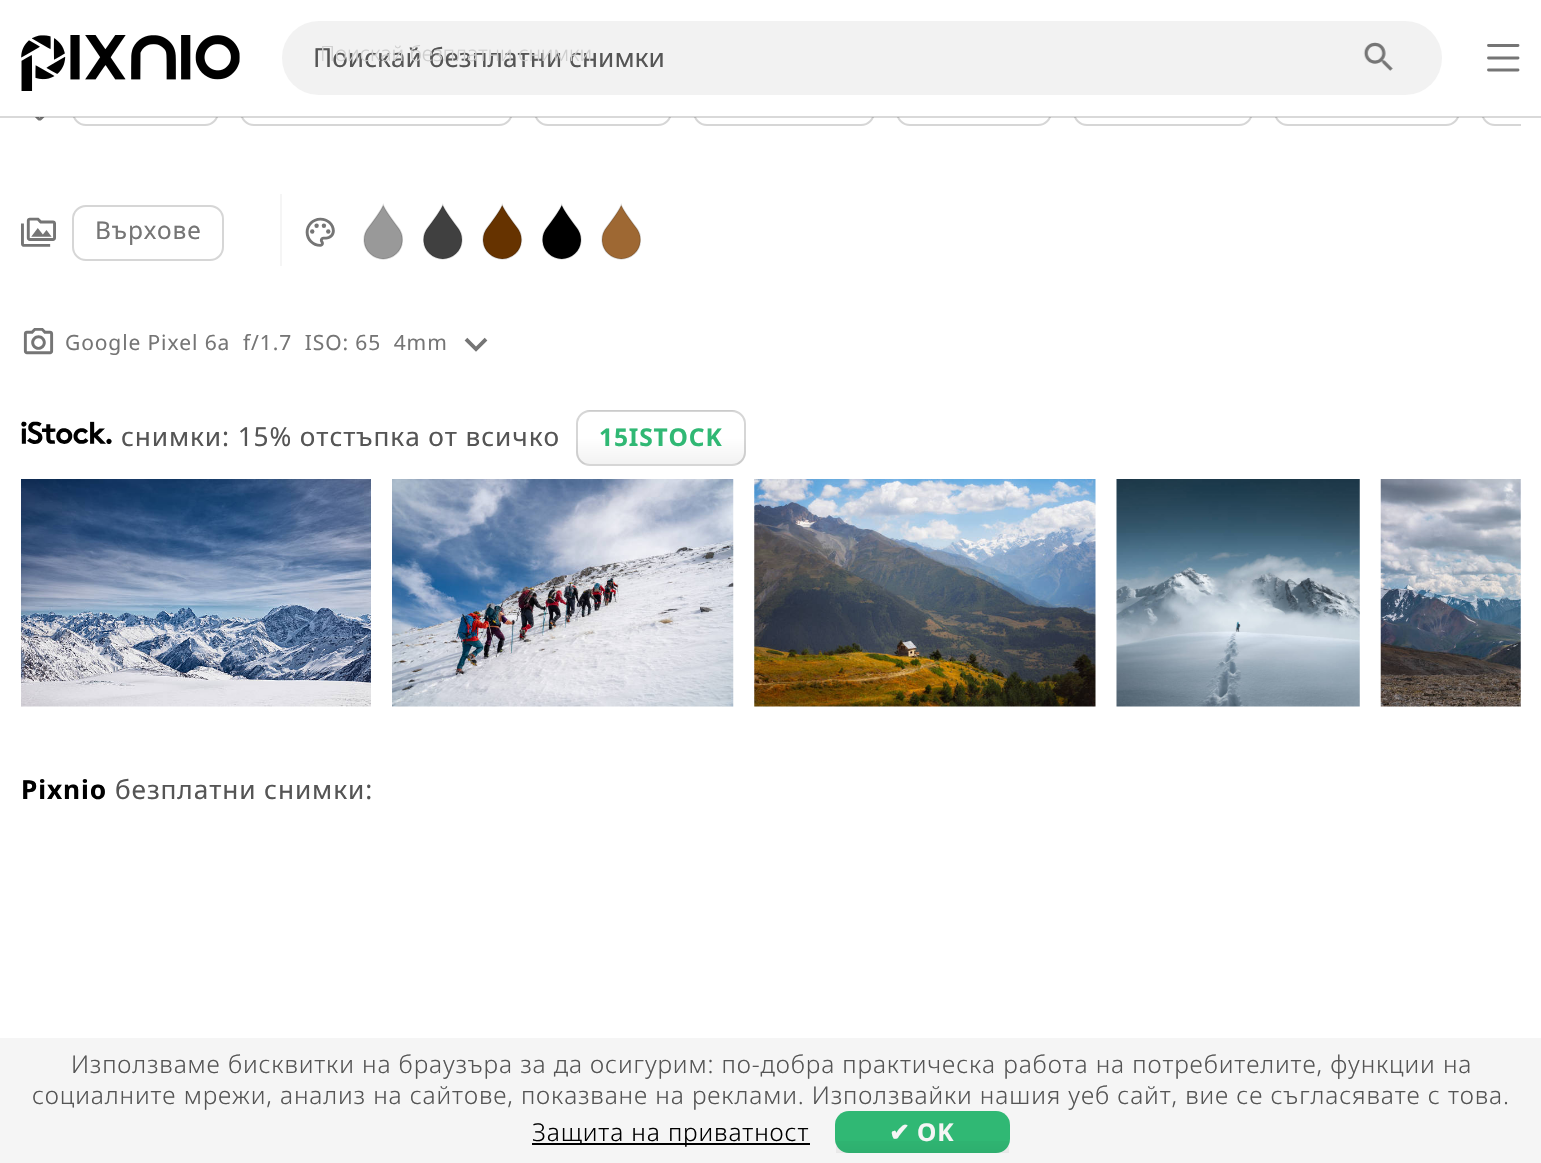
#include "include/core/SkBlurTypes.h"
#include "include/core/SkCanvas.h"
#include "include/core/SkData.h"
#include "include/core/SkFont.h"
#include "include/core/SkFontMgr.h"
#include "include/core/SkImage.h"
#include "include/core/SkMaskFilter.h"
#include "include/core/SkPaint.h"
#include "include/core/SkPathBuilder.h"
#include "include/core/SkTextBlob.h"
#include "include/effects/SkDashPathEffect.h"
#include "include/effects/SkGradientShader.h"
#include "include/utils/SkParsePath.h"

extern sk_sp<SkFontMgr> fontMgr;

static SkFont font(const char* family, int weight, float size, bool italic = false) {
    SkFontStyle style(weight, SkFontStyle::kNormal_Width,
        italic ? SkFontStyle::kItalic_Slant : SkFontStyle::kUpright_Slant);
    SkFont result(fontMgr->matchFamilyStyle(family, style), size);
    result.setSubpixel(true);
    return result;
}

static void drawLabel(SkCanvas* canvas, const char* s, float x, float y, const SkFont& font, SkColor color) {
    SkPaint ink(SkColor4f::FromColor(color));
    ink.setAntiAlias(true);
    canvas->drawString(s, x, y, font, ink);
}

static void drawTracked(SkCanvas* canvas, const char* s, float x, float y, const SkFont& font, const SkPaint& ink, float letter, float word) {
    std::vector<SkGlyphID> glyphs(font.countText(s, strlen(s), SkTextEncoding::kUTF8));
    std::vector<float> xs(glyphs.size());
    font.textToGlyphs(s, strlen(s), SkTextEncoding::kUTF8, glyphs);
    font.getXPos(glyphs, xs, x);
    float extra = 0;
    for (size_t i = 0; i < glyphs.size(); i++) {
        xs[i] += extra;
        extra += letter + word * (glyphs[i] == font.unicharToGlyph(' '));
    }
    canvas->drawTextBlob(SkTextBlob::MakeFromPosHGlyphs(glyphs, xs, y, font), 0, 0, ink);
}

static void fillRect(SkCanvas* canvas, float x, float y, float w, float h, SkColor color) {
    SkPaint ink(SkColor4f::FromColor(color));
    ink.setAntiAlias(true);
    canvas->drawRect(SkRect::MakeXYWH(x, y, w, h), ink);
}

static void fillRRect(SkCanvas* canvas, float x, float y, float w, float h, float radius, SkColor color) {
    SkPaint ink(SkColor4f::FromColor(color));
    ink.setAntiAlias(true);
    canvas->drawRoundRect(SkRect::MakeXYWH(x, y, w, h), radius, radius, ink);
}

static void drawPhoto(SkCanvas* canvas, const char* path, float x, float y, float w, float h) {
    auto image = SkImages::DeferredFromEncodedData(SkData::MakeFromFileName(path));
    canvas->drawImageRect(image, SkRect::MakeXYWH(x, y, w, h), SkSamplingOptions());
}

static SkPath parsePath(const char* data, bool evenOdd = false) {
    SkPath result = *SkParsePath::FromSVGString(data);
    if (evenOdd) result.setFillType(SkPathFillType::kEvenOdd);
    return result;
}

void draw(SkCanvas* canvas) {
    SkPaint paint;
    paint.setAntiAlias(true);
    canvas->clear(0xFFFFFFFF);
    paint.setStroke(true);
    paint.setStrokeWidth(2);
    paint.setColor(0xFFD6D6D6);
    canvas->drawRoundRect(SkRect::MakeXYWH(73, 71, 145, 54), 13, 13, paint);
    canvas->drawRoundRect(SkRect::MakeXYWH(241, 71, 271, 54), 13, 13, paint);
    canvas->drawRoundRect(SkRect::MakeXYWH(535, 71, 136, 54), 13, 13, paint);
    canvas->drawRoundRect(SkRect::MakeXYWH(694, 71, 180, 54), 13, 13, paint);
    canvas->drawRoundRect(SkRect::MakeXYWH(897, 71, 154, 54), 13, 13, paint);
    canvas->drawRoundRect(SkRect::MakeXYWH(1074, 71, 178, 54), 13, 13, paint);
    canvas->drawRoundRect(SkRect::MakeXYWH(1275, 71, 184, 54), 13, 13, paint);
    canvas->save();
    canvas->clipRect(SkRect::MakeXYWH(21, 63, 1500, 93));
    canvas->drawRoundRect(SkRect::MakeXYWH(1482, 71, 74, 54), 13, 13, paint);
    canvas->restore();
    fillRect(canvas, 72, 70, 1449, 47, 0xFFFFFFFF);
    drawPhoto(canvas, "assets/img3.png", 35, 117, 10, 4);
    fillRect(canvas, 0, 116, 1541, 2, 0x26000000);
    drawPhoto(canvas, "assets/img1.png", 21, 35, 219, 56);
    fillRRect(canvas, 282, 21, 1160, 74, 37, 0xFFF2F2F2);
    SkFont font1 = font("Noto Sans", 400, 26.25f);
    drawLabel(canvas, "Поискай безплатни снимки", 313, 67, font1, 0xFF555555);
    SkFont font2 = font("Noto Sans", 300, 21);
    drawLabel(canvas, "Поискай безплатни снимки", 320, 61, font2, 0xFFCFCFCF);
    drawPhoto(canvas, "assets/img2.png", 1363, 42, 30, 29);
    paint.setStrokeWidth(2.9f);
    paint.setStrokeCap(SkPaint::kRound_Cap);
    paint.setColor(0xFF757575);
    canvas->drawPath(parsePath("M1488.5 45.5H1518M1488.5 58H1518M1518 70H1488.5"), paint);
    drawPhoto(canvas, "assets/img4.png", 21, 217, 35, 30);
    paint.setStrokeWidth(2);
    paint.setStrokeCap(SkPaint::kButt_Cap);
    paint.setColor(0xFFD6D6D6);
    canvas->drawRoundRect(SkRect::MakeXYWH(73, 206, 150, 54), 13, 13, paint);
    SkFont font3 = font("Noto Sans", 400, 24.5f);
    paint.setStroke(false);
    paint.setColor(0xFF757575);
    drawTracked(canvas, "Върхове", 95, 239, font3, paint, 0.88f, 0);
    fillRect(canvas, 280, 194, 2, 72, 0xFFF5F5F5);
    drawPhoto(canvas, "assets/img5.png", 305, 217, 30, 30);
    drawPhoto(canvas, "assets/img6.png", 363, 203, 40, 57);
    drawPhoto(canvas, "assets/img7.png", 423, 203, 40, 57);
    drawPhoto(canvas, "assets/img8.png", 482, 203, 41, 57);
    drawPhoto(canvas, "assets/img9.png", 542, 203, 40, 57);
    drawPhoto(canvas, "assets/img10.png", 601, 203, 40, 57);
    drawPhoto(canvas, "assets/img11.png", 23, 328, 31, 27);
    SkFont font4 = font("Noto Sans", 400, 21);
    drawTracked(canvas, "Google Pixel 6a  f/1.7  ISO: 65  4mm", 65, 350, font4, paint, 0.88f, 0);
    drawPhoto(canvas, "assets/img12.png", 464, 337, 24, 15);
    drawPhoto(canvas, "assets/img13.png", 21, 421, 91, 23);
    paint.setColor(0xFF555555);
    drawTracked(canvas, "снимки: 15% отстъпка от всичко", 121, 446, font1, paint, 0.88f, 0);
    canvas->save();
    canvas->clipPath(parsePath("M590 410H732C739.5 410 746 416.5 746 424V452C746 459.5 739.5 466 732 466H590C582.5 466 576 459.5 576 452V424C576 416.5 582.5 410 590 410Z"), true);
    {
        const SkColor colors[] = {0xFFFFFFFF, 0xFFF2F2F2};
        const float stops[] = {0.5f, 1};
        const SkPoint ends[] = {{661, 359}, {661, 411}};
        paint.setShader(SkGradientShader::MakeLinear(ends, colors, stops, 2, SkTileMode::kClamp));
        paint.setAlpha(255);
    }
    canvas->drawRect(SkRect::MakeXYWH(585, 410, 152, 1), paint);
    {
        const SkColor colors[] = {0xFFFFFFFF, 0xFFF2F2F2};
        const float stops[] = {0.5f, 1};
        const SkPoint ends[] = {{661, 411}, {661, 464}};
        paint.setShader(SkGradientShader::MakeLinear(ends, colors, stops, 2, SkTileMode::kClamp));
        paint.setAlpha(255);
    }
    canvas->drawRect(SkRect::MakeXYWH(576, 411, 170, 53), paint);
    canvas->restore();
    paint.setStroke(true);
    paint.setShader(nullptr);
    paint.setColor(0x29000000);
    canvas->drawRoundRect(SkRect::MakeXYWH(577, 411, 168, 54), 13, 13, paint);
    SkFont font5 = font("Noto Sans", 700, 24.5f);
    paint.setStroke(false);
    paint.setColor(0xFF30B874);
    drawTracked(canvas, "15ISTOCK", 599, 446, font5, paint, 0.88f, 0);
    drawPhoto(canvas, "assets/img14.png", 21, 479, 350, 228);
    drawPhoto(canvas, "assets/img15.png", 392, 479, 342, 228);
    drawPhoto(canvas, "assets/img16.png", 754, 479, 342, 228);
    drawPhoto(canvas, "assets/img17.png", 1116, 479, 244, 228);
    drawPhoto(canvas, "assets/img18.png", 1380, 479, 141, 228);
    SkFont font6 = font("Noto Sans", 700, 26.25f);
    paint.setColor(0xFF000000);
    drawTracked(canvas, "Pixnio", 21, 799, font6, paint, 0.88f, 0);
    paint.setColor(0xFF555555);
    drawTracked(canvas, "безплатни снимки:", 115, 799, font1, paint, 0.88f, 0);
    fillRect(canvas, 0, 1038, 1541, 125, 0xFFF5F5F5);
    SkFont font7 = font("Noto Sans", 300, 24.5f);
    drawTracked(canvas, "Използваме бисквитки на браузъра за да осигурим: по-добра практическа работа на потребителите, функции на", 71, 1073, font7, paint, 0.88f, 0);
    drawTracked(canvas, "социалните мрежи, анализ на сайтове, показване на реклами. Използвайки нашия уеб сайт, вие се съгласявате с това.", 32, 1104, font7, paint, 0.88f, 0);
    fillRect(canvas, 532, 1143, 278, 2, 0xFF000000);
    paint.setColor(0xFF000000);
    drawTracked(canvas, "Защита на приватност", 532, 1141, font7, paint, 0.88f, 0);
    fillRRect(canvas, 835, 1111, 175, 42, 14, 0xFF30B874);
    {
        const SkColor colors[] = {0x00000000, 0x0D000000};
        const float stops[] = {0.5f, 1};
        const SkPoint ends[] = {{922, 1111}, {922, 1153}};
        paint.setShader(SkGradientShader::MakeLinear(ends, colors, stops, 2, SkTileMode::kClamp));
        paint.setAlpha(255);
    }
    canvas->drawRect(SkRect::MakeXYWH(836, 1141, 173, 12), paint);
    SkFont font8 = font("DejaVu Sans", 700, 24.5f);
    paint.setShader(nullptr);
    paint.setColor(0xFFF5F5F5);
    drawTracked(canvas, "✔", 889, 1141, font8, paint, 0.88f, 0);
    drawTracked(canvas, "OK", 917, 1141, font5, paint, 0.88f, 0);
}
